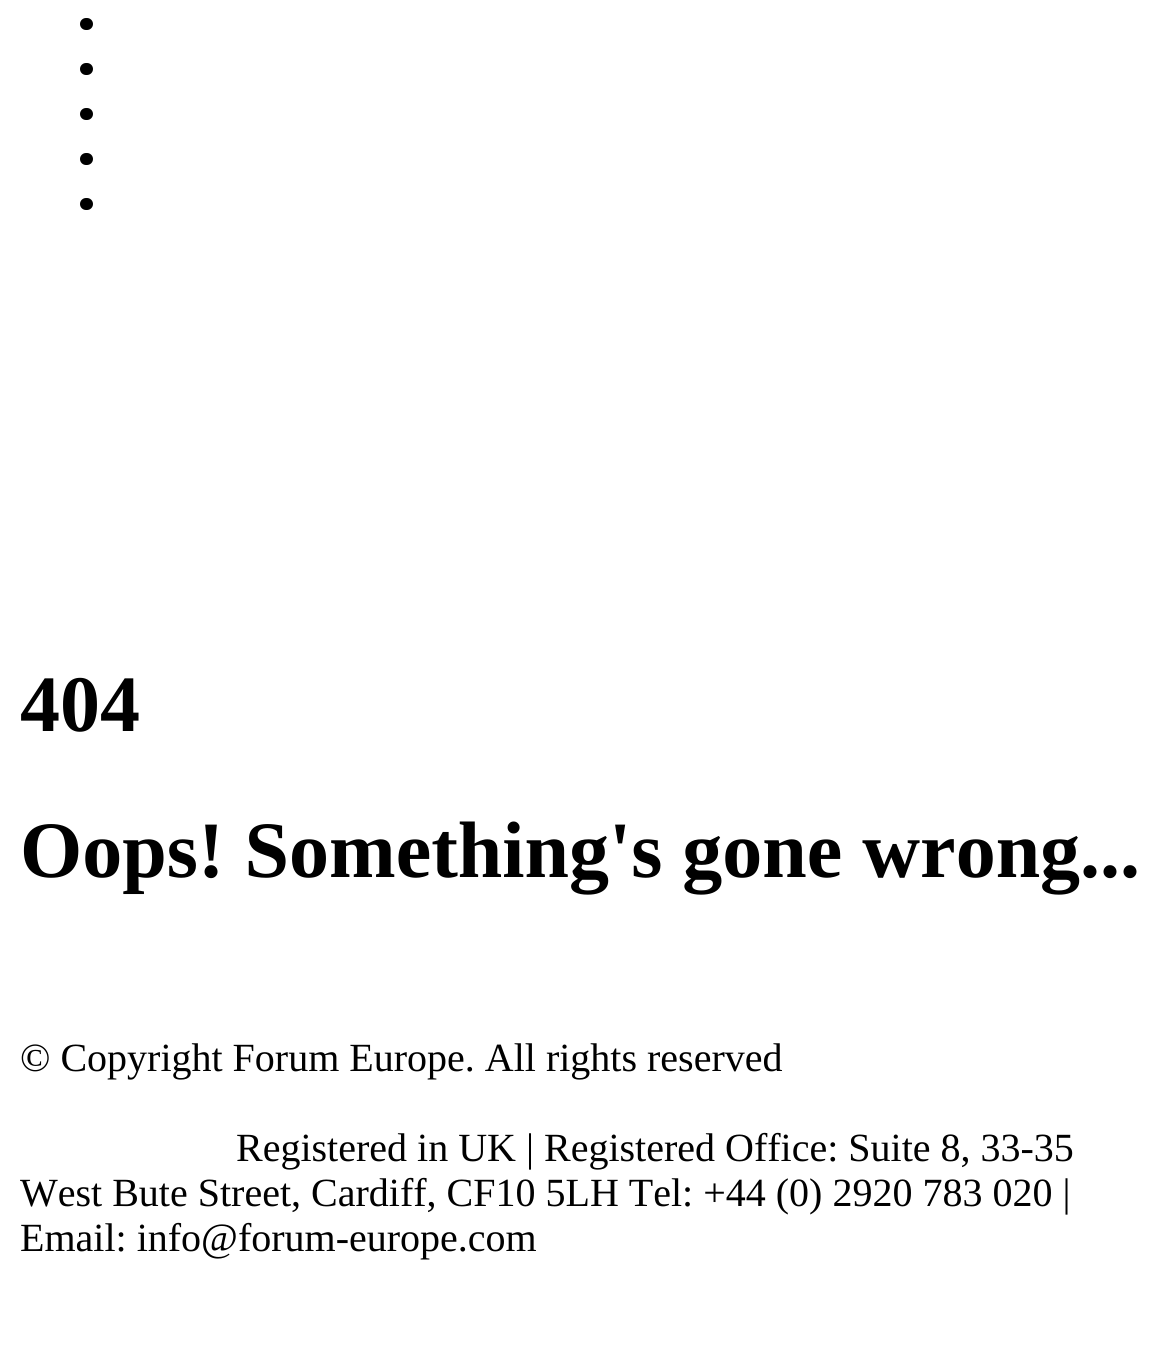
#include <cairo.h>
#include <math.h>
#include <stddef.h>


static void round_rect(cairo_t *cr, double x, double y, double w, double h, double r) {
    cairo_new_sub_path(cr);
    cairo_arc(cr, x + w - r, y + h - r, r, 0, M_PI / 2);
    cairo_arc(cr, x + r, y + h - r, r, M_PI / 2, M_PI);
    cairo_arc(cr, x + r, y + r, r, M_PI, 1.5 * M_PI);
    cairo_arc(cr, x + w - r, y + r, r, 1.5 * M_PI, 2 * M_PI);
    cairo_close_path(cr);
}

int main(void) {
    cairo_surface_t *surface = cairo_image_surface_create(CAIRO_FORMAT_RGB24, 1175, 1365);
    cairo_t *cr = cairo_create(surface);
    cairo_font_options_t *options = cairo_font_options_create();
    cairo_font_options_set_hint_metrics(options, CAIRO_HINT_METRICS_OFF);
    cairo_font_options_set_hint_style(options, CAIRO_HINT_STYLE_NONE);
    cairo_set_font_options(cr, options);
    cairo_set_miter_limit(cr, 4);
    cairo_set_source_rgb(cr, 1, 1, 1);
    cairo_paint(cr);
    cairo_set_source_rgb(cr, 0, 0, 0);
    round_rect(cr, 80, 18, 13, 12, 6);
    cairo_fill(cr);
    round_rect(cr, 80, 63, 13, 12, 6);
    cairo_fill(cr);
    round_rect(cr, 80, 108, 13, 12, 6);
    cairo_fill(cr);
    round_rect(cr, 80, 153, 13, 12, 6);
    cairo_fill(cr);
    round_rect(cr, 80, 198, 13, 12, 6);
    cairo_fill(cr);
    cairo_select_font_face(cr, "Liberation Serif", CAIRO_FONT_SLANT_NORMAL, CAIRO_FONT_WEIGHT_BOLD);
    cairo_set_font_size(cr, 80);
    cairo_move_to(cr, 20, 731);
    cairo_show_text(cr, "404");
    cairo_move_to(cr, 20, 877);
    cairo_show_text(cr, "Oops! Something's gone wrong...");
    cairo_select_font_face(cr, "Liberation Serif", CAIRO_FONT_SLANT_NORMAL, CAIRO_FONT_WEIGHT_NORMAL);
    cairo_set_font_size(cr, 40);
    cairo_move_to(cr, 20, 1071);
    cairo_show_text(cr, "© Copyright Forum Europe. All rights reserved");
    cairo_move_to(cr, 236, 1161);
    cairo_show_text(cr, "Registered in UK | Registered Office: Suite 8, 33-35");
    cairo_move_to(cr, 20, 1206);
    cairo_show_text(cr, "West Bute Street, Cardiff, CF10 5LH Tel: +44 (0) 2920 783 020 |");
    cairo_move_to(cr, 20, 1251);
    cairo_show_text(cr, "Email: info@forum-europe.com");
    cairo_surface_write_to_png(surface, "page.png");
    cairo_font_options_destroy(options);
    cairo_destroy(cr);
    cairo_surface_destroy(surface);
    return 0;
}
